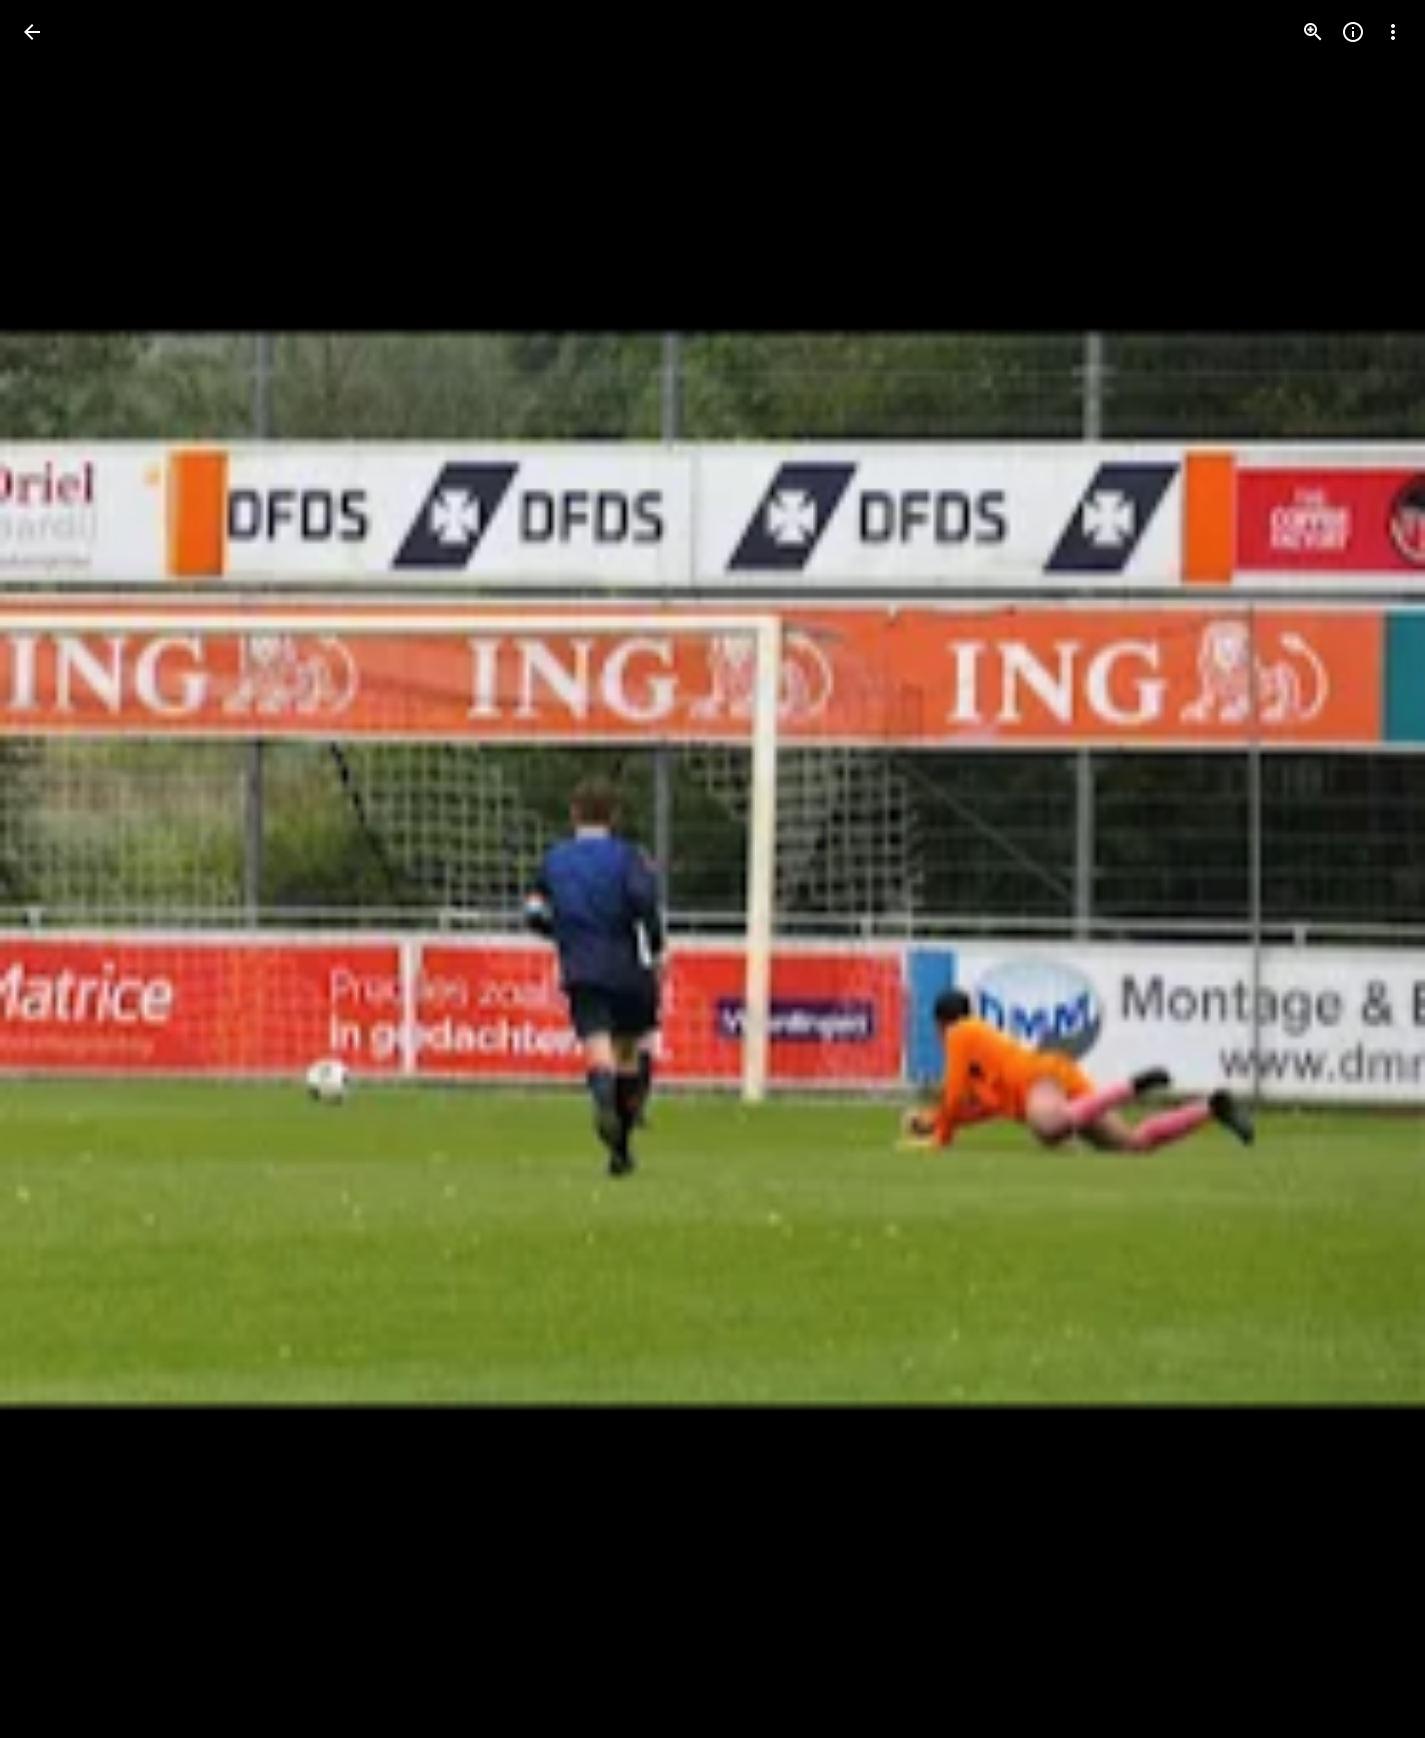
#include <cairo.h>
#include <math.h>
#include <stddef.h>


static void picture(cairo_t *cr, const char *path, double x, double y, double w, double h) {
    cairo_surface_t *image = cairo_image_surface_create_from_png(path);
    cairo_save(cr);
    cairo_set_source_surface(cr, image, x, y);
    cairo_rectangle(cr, x, y, w, h);
    cairo_fill(cr);
    cairo_restore(cr);
    cairo_surface_destroy(image);
}

int main(void) {
    cairo_surface_t *surface = cairo_image_surface_create(CAIRO_FORMAT_RGB24, 1425, 1738);
    cairo_t *cr = cairo_create(surface);
    cairo_font_options_t *options = cairo_font_options_create();
    cairo_font_options_set_hint_metrics(options, CAIRO_HINT_METRICS_OFF);
    cairo_font_options_set_hint_style(options, CAIRO_HINT_STYLE_NONE);
    cairo_set_font_options(cr, options);
    cairo_set_miter_limit(cr, 4);
    cairo_set_source_rgb(cr, 0, 0, 0);
    cairo_paint(cr);
    picture(cr, "img1.png", 24, 24, 16, 16);
    picture(cr, "img2.png", 1304, 23, 18, 18);
    picture(cr, "img3.png", 1343, 22, 20, 20);
    picture(cr, "img4.png", 1391, 24, 4, 16);
    picture(cr, "img5.png", 0, 328, 1425, 1083);
    cairo_surface_write_to_png(surface, "page.png");
    cairo_font_options_destroy(options);
    cairo_destroy(cr);
    cairo_surface_destroy(surface);
    return 0;
}
